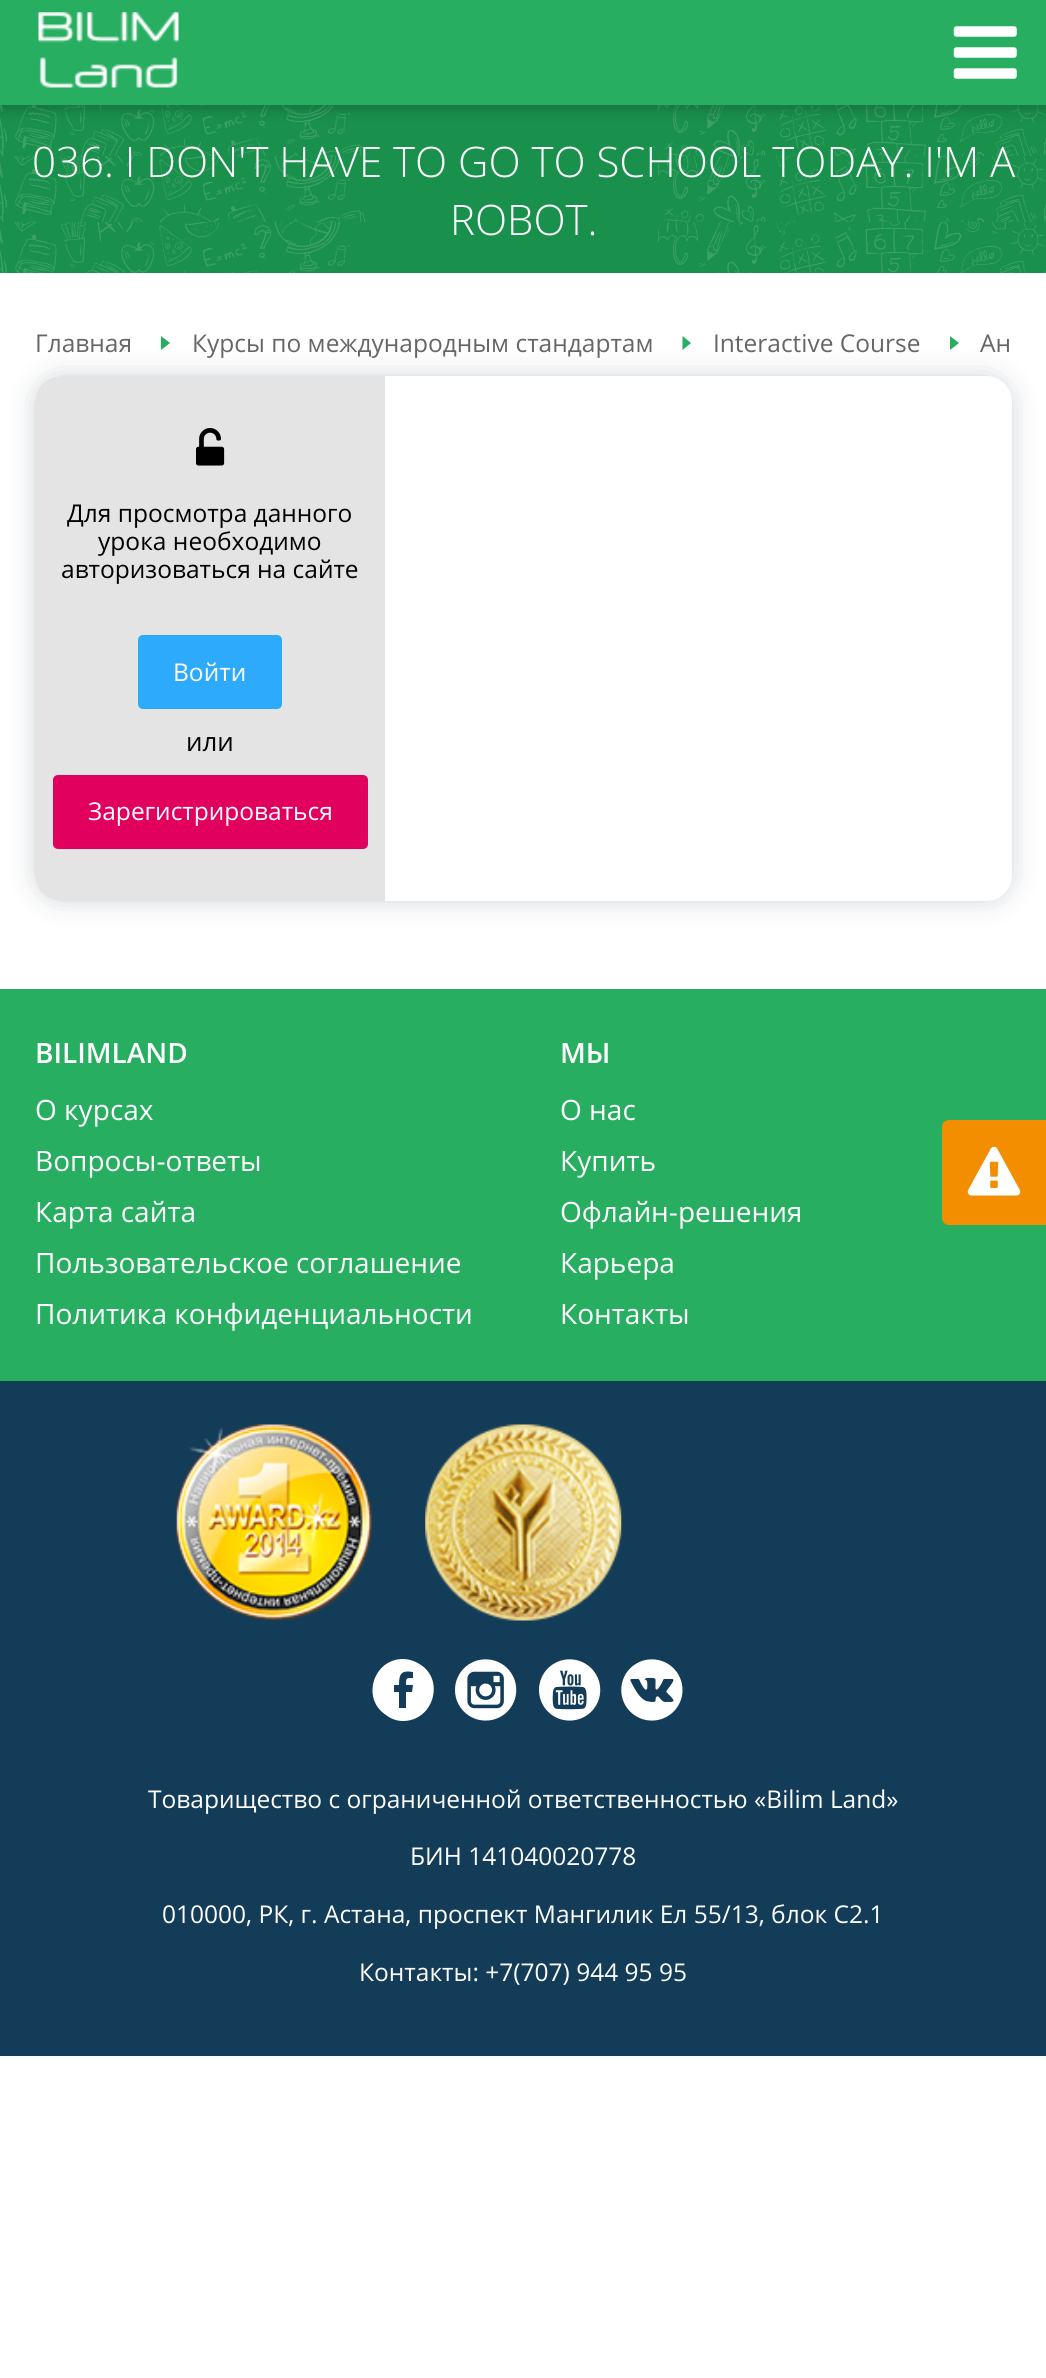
#include <cairo.h>
#include <math.h>
#include <stddef.h>


static void round_rect(cairo_t *cr, double x, double y, double w, double h, double r) {
    cairo_new_sub_path(cr);
    cairo_arc(cr, x + w - r, y + h - r, r, 0, M_PI / 2);
    cairo_arc(cr, x + r, y + h - r, r, M_PI / 2, M_PI);
    cairo_arc(cr, x + r, y + r, r, M_PI, 1.5 * M_PI);
    cairo_arc(cr, x + w - r, y + r, r, 1.5 * M_PI, 2 * M_PI);
    cairo_close_path(cr);
}

static void shadow(cairo_t *cr, double x, double y, double w, double h, double r, double blur, double alpha) {
    cairo_push_group_with_content(cr, CAIRO_CONTENT_ALPHA);
    cairo_set_operator(cr, CAIRO_OPERATOR_SOURCE);
    for (int i = 15; i >= -15 && fmin(w, h) + blur * i / 3 > 0; i -= 2) {
        double e = blur * i / 6;
        cairo_set_source_rgba(cr, 0, 0, 0, alpha * erfc((i - 1) / 8.5) / 2);
        round_rect(cr, x - e, y - e, w + 2 * e, h + 2 * e, fmax(0, fmin(r + e + blur * .6, fmin(w, h) / 2 + e)));
        cairo_fill(cr);
    }
    cairo_pattern_t *soft = cairo_pop_group(cr);
    cairo_mask(cr, soft);
    cairo_pattern_destroy(soft);
}

static void picture(cairo_t *cr, const char *path, double x, double y, double w, double h) {
    cairo_surface_t *image = cairo_image_surface_create_from_png(path);
    cairo_save(cr);
    cairo_set_source_surface(cr, image, x, y);
    cairo_rectangle(cr, x, y, w, h);
    cairo_fill(cr);
    cairo_restore(cr);
    cairo_surface_destroy(image);
}

int main(void) {
    cairo_surface_t *surface = cairo_image_surface_create(CAIRO_FORMAT_RGB24, 1046, 2378);
    cairo_t *cr = cairo_create(surface);
    cairo_font_options_t *options = cairo_font_options_create();
    cairo_font_options_set_hint_metrics(options, CAIRO_HINT_METRICS_OFF);
    cairo_font_options_set_hint_style(options, CAIRO_HINT_STYLE_NONE);
    cairo_set_font_options(cr, options);
    cairo_set_miter_limit(cr, 4);
    cairo_set_source_rgb(cr, 1, 1, 1);
    cairo_paint(cr);
    picture(cr, "img3.png", 0, 105, 1046, 168);
    cairo_set_source_rgb(cr, 0, 0, 0);
    shadow(cr, 0, 5, 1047, 105, 0, 6, 0.2);
    cairo_set_source_rgb(cr, 0.153, 0.682, 0.376);
    cairo_rectangle(cr, 0, 0, 1046, 105);
    cairo_fill(cr);
    picture(cr, "img1.png", 38, 12, 141, 76);
    picture(cr, "img2.png", 953, 26, 64, 53);
    cairo_select_font_face(cr, "Open Sans Light", CAIRO_FONT_SLANT_NORMAL, CAIRO_FONT_WEIGHT_NORMAL);
    cairo_set_font_size(cr, 42);
    cairo_set_source_rgb(cr, 1, 1, 1);
    cairo_move_to(cr, 32, 177);
    cairo_show_text(cr, "036. I DON'T HAVE TO GO TO SCHOOL TODAY. I'M A");
    cairo_move_to(cr, 450, 235);
    cairo_show_text(cr, "ROBOT.");
    cairo_set_source_rgb(cr, 0, 0.122, 0.2);
    shadow(cr, 35, 376, 977, 525, 26, 13, 0.19);
    cairo_select_font_face(cr, "Open Sans", CAIRO_FONT_SLANT_NORMAL, CAIRO_FONT_WEIGHT_NORMAL);
    cairo_set_font_size(cr, 24.5);
    cairo_set_source_rgb(cr, 0.4, 0.4, 0.4);
    cairo_move_to(cr, 35, 352);
    cairo_show_text(cr, "Главная");
    cairo_set_source_rgb(cr, 0.153, 0.682, 0.376);
    cairo_new_path(cr);
    cairo_move_to(cr, 161, 350);
    cairo_line_to(cr, 161, 336);
    cairo_line_to(cr, 170, 343);
    cairo_close_path(cr);
    cairo_fill(cr);
    cairo_set_source_rgb(cr, 0.4, 0.4, 0.4);
    cairo_move_to(cr, 192, 352);
    cairo_show_text(cr, "Курсы по международным стандартам");
    cairo_set_source_rgb(cr, 0.153, 0.682, 0.376);
    cairo_new_path(cr);
    cairo_move_to(cr, 682.5, 350);
    cairo_line_to(cr, 682.5, 336);
    cairo_line_to(cr, 691, 343);
    cairo_close_path(cr);
    cairo_fill(cr);
    cairo_set_source_rgb(cr, 0.4, 0.4, 0.4);
    cairo_move_to(cr, 713, 352);
    cairo_show_text(cr, "Interactive Course");
    cairo_set_source_rgb(cr, 0.153, 0.682, 0.376);
    cairo_new_path(cr);
    cairo_move_to(cr, 950, 350);
    cairo_line_to(cr, 950, 336);
    cairo_line_to(cr, 959, 343);
    cairo_close_path(cr);
    cairo_fill(cr);
    cairo_set_source_rgb(cr, 0.4, 0.4, 0.4);
    cairo_move_to(cr, 980, 352);
    cairo_show_text(cr, "Ан");
    cairo_set_source_rgb(cr, 1, 1, 1);
    round_rect(cr, 35, 376, 977, 525, 26);
    cairo_fill(cr);
    cairo_set_source_rgb(cr, 0.894, 0.894, 0.894);
    cairo_new_path(cr);
    cairo_move_to(cr, 61, 376);
    cairo_line_to(cr, 385, 376);
    cairo_line_to(cr, 385, 901);
    cairo_line_to(cr, 61, 901);
    cairo_curve_to(cr, 46.5, 901, 35, 889.5, 35, 875);
    cairo_line_to(cr, 35, 402);
    cairo_curve_to(cr, 35, 387.5, 46.5, 376, 61, 376);
    cairo_close_path(cr);
    cairo_fill(cr);
    picture(cr, "img4.png", 196, 428, 29, 38);
    cairo_set_source_rgb(cr, 0, 0, 0);
    cairo_move_to(cr, 67, 522);
    cairo_show_text(cr, "Для просмотра данного");
    cairo_move_to(cr, 98, 550);
    cairo_show_text(cr, "урока необходимо");
    cairo_move_to(cr, 61, 578);
    cairo_show_text(cr, "авторизоваться на сайте");
    cairo_set_source_rgb(cr, 0.176, 0.667, 0.988);
    round_rect(cr, 138, 635, 144, 74, 5);
    cairo_fill(cr);
    cairo_set_source_rgb(cr, 1, 1, 1);
    cairo_move_to(cr, 173, 681);
    cairo_show_text(cr, "Войти");
    cairo_set_font_size(cr, 26);
    cairo_set_source_rgb(cr, 0, 0, 0);
    cairo_move_to(cr, 186, 751);
    cairo_show_text(cr, "или");
    cairo_set_source_rgb(cr, 0.886, 0, 0.369);
    round_rect(cr, 53, 775, 315, 74, 5);
    cairo_fill(cr);
    cairo_set_font_size(cr, 24.5);
    cairo_set_source_rgb(cr, 1, 1, 1);
    cairo_move_to(cr, 88, 820);
    cairo_show_text(cr, "Зарегистрироваться");
    cairo_set_source_rgb(cr, 0.153, 0.682, 0.376);
    cairo_rectangle(cr, 0, 989, 1046, 392);
    cairo_fill(cr);
    cairo_set_source_rgb(cr, 0.949, 0.557, 0);
    cairo_new_path(cr);
    cairo_move_to(cr, 949, 1120);
    cairo_line_to(cr, 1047, 1120);
    cairo_line_to(cr, 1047, 1225);
    cairo_line_to(cr, 949, 1225);
    cairo_curve_to(cr, 945, 1225, 942, 1222, 942, 1218);
    cairo_line_to(cr, 942, 1127);
    cairo_curve_to(cr, 942, 1123, 945, 1120, 949, 1120);
    cairo_close_path(cr);
    cairo_fill(cr);
    picture(cr, "img5.png", 967, 1146, 54, 50);
    cairo_select_font_face(cr, "Open Sans SemiBold", CAIRO_FONT_SLANT_NORMAL, CAIRO_FONT_WEIGHT_NORMAL);
    cairo_set_font_size(cr, 28);
    cairo_set_source_rgb(cr, 1, 1, 1);
    cairo_move_to(cr, 35, 1063);
    cairo_show_text(cr, "BILIMLAND");
    cairo_select_font_face(cr, "Open Sans", CAIRO_FONT_SLANT_NORMAL, CAIRO_FONT_WEIGHT_NORMAL);
    cairo_move_to(cr, 35, 1120);
    cairo_show_text(cr, "О курсах");
    cairo_move_to(cr, 35, 1171);
    cairo_show_text(cr, "Вопросы-ответы");
    cairo_move_to(cr, 35, 1222);
    cairo_show_text(cr, "Карта сайта");
    cairo_move_to(cr, 35, 1273);
    cairo_show_text(cr, "Пользовательское соглашение");
    cairo_move_to(cr, 35, 1324);
    cairo_show_text(cr, "Политика конфиденциальности");
    cairo_select_font_face(cr, "Open Sans SemiBold", CAIRO_FONT_SLANT_NORMAL, CAIRO_FONT_WEIGHT_NORMAL);
    cairo_move_to(cr, 560, 1063);
    cairo_show_text(cr, "МЫ");
    cairo_select_font_face(cr, "Open Sans", CAIRO_FONT_SLANT_NORMAL, CAIRO_FONT_WEIGHT_NORMAL);
    cairo_move_to(cr, 560, 1120);
    cairo_show_text(cr, "О нас");
    cairo_move_to(cr, 560, 1171);
    cairo_show_text(cr, "Купить");
    cairo_move_to(cr, 560, 1222);
    cairo_show_text(cr, "Офлайн-решения");
    cairo_move_to(cr, 560, 1273);
    cairo_show_text(cr, "Карьера");
    cairo_move_to(cr, 560, 1324);
    cairo_show_text(cr, "Контакты");
    cairo_set_source_rgb(cr, 0.075, 0.235, 0.345);
    cairo_rectangle(cr, 0, 1381, 1046, 675);
    cairo_fill(cr);
    picture(cr, "img6.png", 176, 1424, 197, 197);
    picture(cr, "img7.png", 425, 1424, 197, 197);
    cairo_set_source_rgb(cr, 1, 1, 1);
    cairo_new_path(cr);
    cairo_move_to(cr, 403, 1659);
    cairo_curve_to(cr, 409, 1659, 415, 1661, 421, 1665);
    cairo_curve_to(cr, 445, 1681, 433, 1721, 403, 1721);
    cairo_curve_to(cr, 397, 1721, 391, 1719, 386, 1715);
    cairo_curve_to(cr, 361, 1699, 373, 1659, 403, 1659);
    cairo_close_path(cr);
    cairo_move_to(cr, 406, 1708);
    cairo_line_to(cr, 406, 1692);
    cairo_line_to(cr, 412, 1692);
    cairo_line_to(cr, 413, 1685);
    cairo_line_to(cr, 406, 1685);
    cairo_curve_to(cr, 406, 1678, 406, 1678, 413, 1678);
    cairo_line_to(cr, 413, 1672);
    cairo_curve_to(cr, 401, 1670, 399, 1674, 399, 1685);
    cairo_line_to(cr, 394, 1685);
    cairo_line_to(cr, 394, 1692);
    cairo_line_to(cr, 399, 1692);
    cairo_line_to(cr, 399, 1708);
    cairo_close_path(cr);
    cairo_fill(cr);
    picture(cr, "img8.png", 455, 1659, 62, 62);
    picture(cr, "img9.png", 539, 1659, 62, 62);
    picture(cr, "img10.png", 621, 1659, 62, 62);
    cairo_set_font_size(cr, 24.5);
    cairo_move_to(cr, 148, 1808);
    cairo_show_text(cr, "Товарищество с ограниченной ответственностью «Bilim Land»");
    cairo_move_to(cr, 410, 1865);
    cairo_show_text(cr, "БИН 141040020778");
    cairo_move_to(cr, 162, 1923);
    cairo_show_text(cr, "010000, РК, г. Астана, проспект Мангилик Ел 55/13, блок С2.1");
    cairo_move_to(cr, 359, 1981);
    cairo_show_text(cr, "Контакты: +7(707) 944 95 95");
    cairo_surface_write_to_png(surface, "page.png");
    cairo_font_options_destroy(options);
    cairo_destroy(cr);
    cairo_surface_destroy(surface);
    return 0;
}
